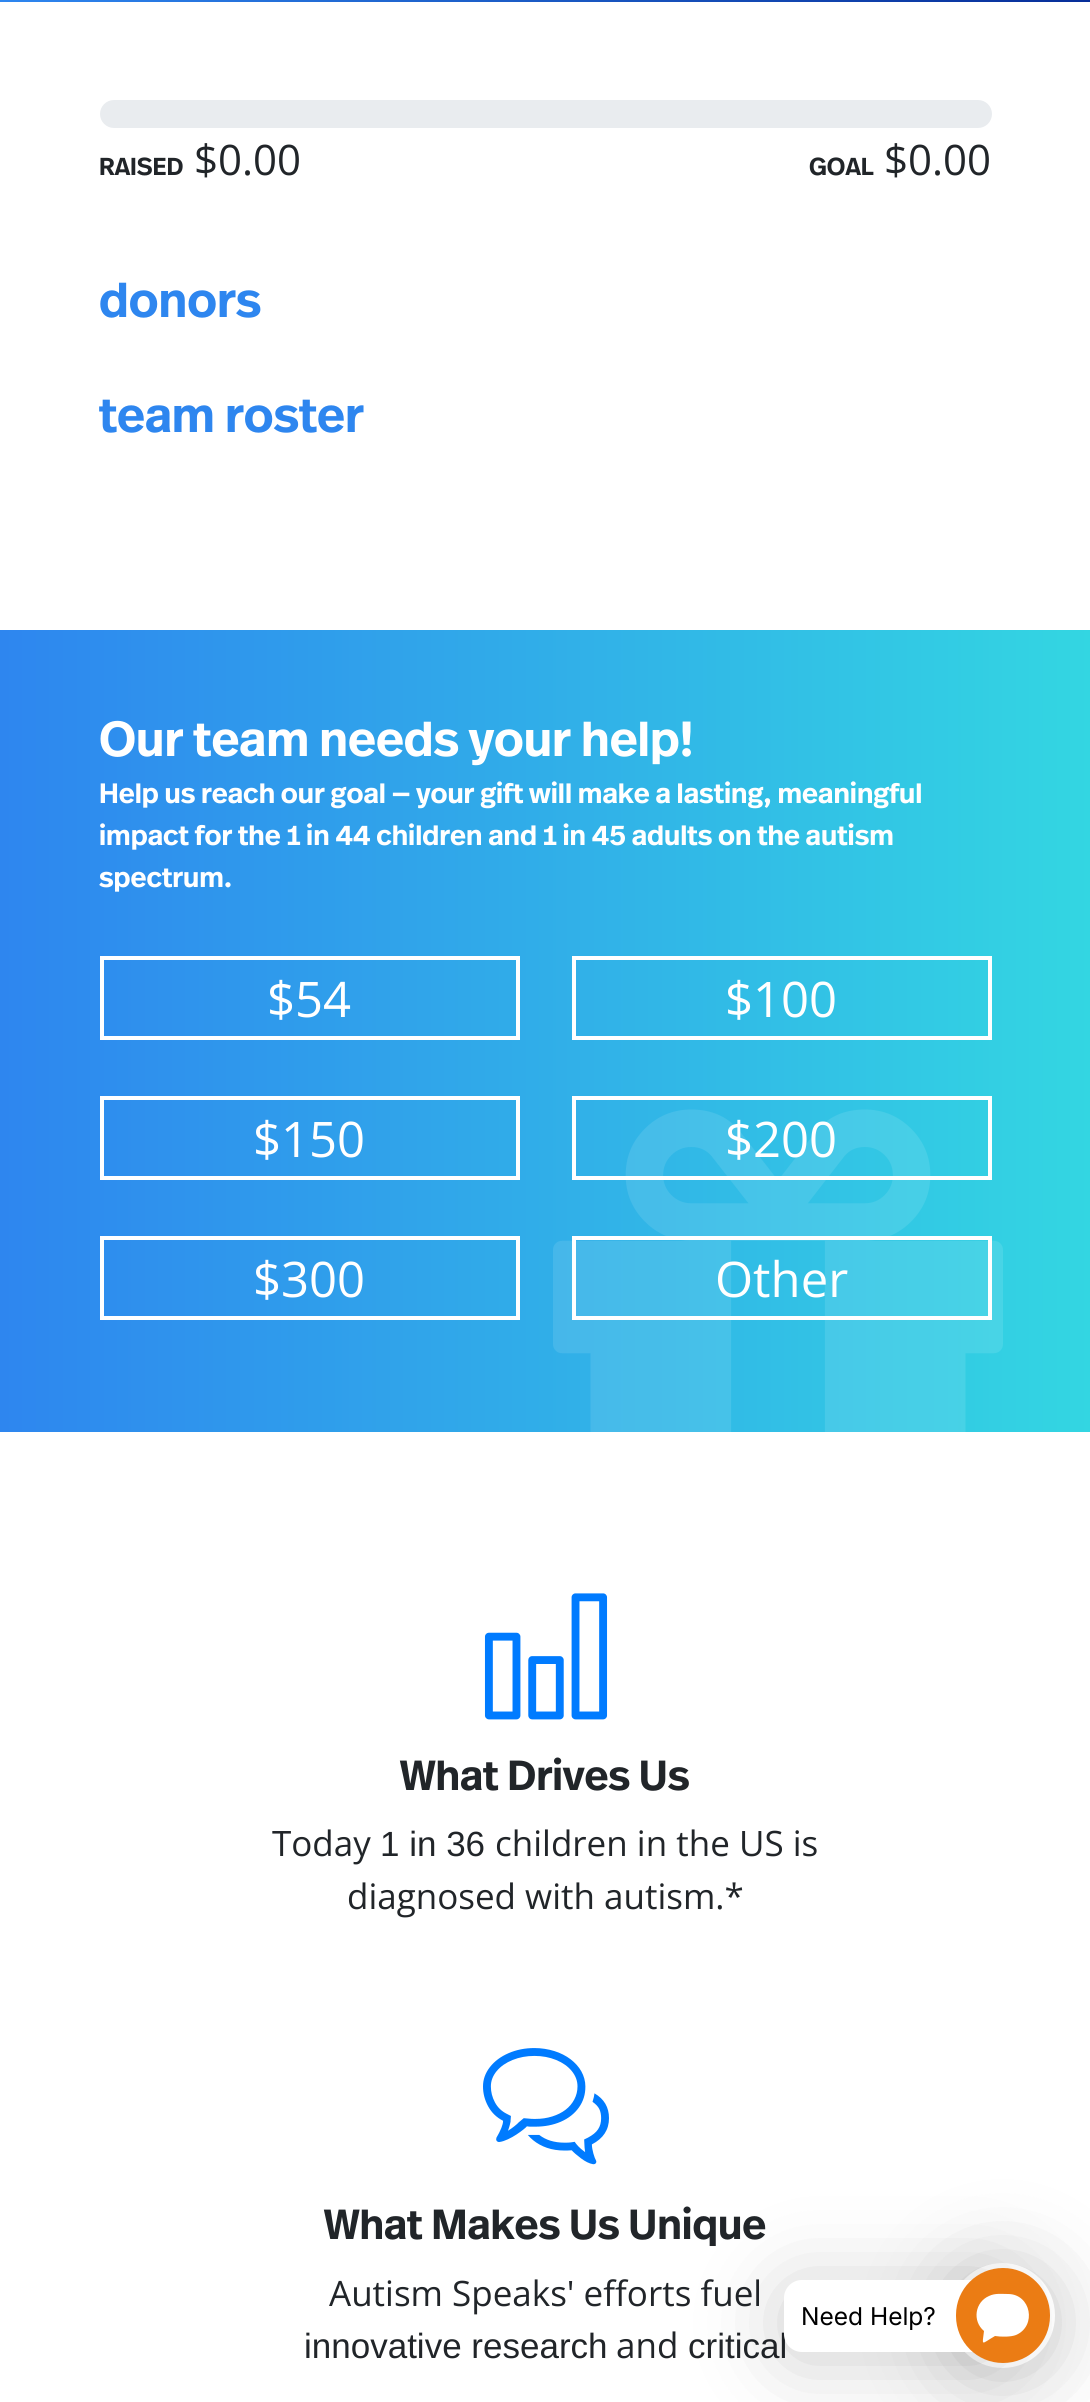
#include <cairo.h>
#include <math.h>
#include <stddef.h>


static void round_rect(cairo_t *cr, double x, double y, double w, double h, double r) {
    cairo_new_sub_path(cr);
    cairo_arc(cr, x + w - r, y + h - r, r, 0, M_PI / 2);
    cairo_arc(cr, x + r, y + h - r, r, M_PI / 2, M_PI);
    cairo_arc(cr, x + r, y + r, r, M_PI, 1.5 * M_PI);
    cairo_arc(cr, x + w - r, y + r, r, 1.5 * M_PI, 2 * M_PI);
    cairo_close_path(cr);
}

static void shadow(cairo_t *cr, double x, double y, double w, double h, double r, double blur, double alpha) {
    cairo_push_group_with_content(cr, CAIRO_CONTENT_ALPHA);
    cairo_set_operator(cr, CAIRO_OPERATOR_SOURCE);
    for (int i = 15; i >= -15 && fmin(w, h) + blur * i / 3 > 0; i -= 2) {
        double e = blur * i / 6;
        cairo_set_source_rgba(cr, 0, 0, 0, alpha * erfc((i - 1) / 8.5) / 2);
        round_rect(cr, x - e, y - e, w + 2 * e, h + 2 * e, fmax(0, fmin(r + e + blur * .6, fmin(w, h) / 2 + e)));
        cairo_fill(cr);
    }
    cairo_pattern_t *soft = cairo_pop_group(cr);
    cairo_mask(cr, soft);
    cairo_pattern_destroy(soft);
}

static void picture(cairo_t *cr, const char *path, double x, double y, double w, double h) {
    cairo_surface_t *image = cairo_image_surface_create_from_png(path);
    cairo_save(cr);
    cairo_set_source_surface(cr, image, x, y);
    cairo_rectangle(cr, x, y, w, h);
    cairo_fill(cr);
    cairo_restore(cr);
    cairo_surface_destroy(image);
}

int main(void) {
    cairo_surface_t *surface = cairo_image_surface_create(CAIRO_FORMAT_RGB24, 1090, 2402);
    cairo_t *cr = cairo_create(surface);
    cairo_font_options_t *options = cairo_font_options_create();
    cairo_font_options_set_hint_metrics(options, CAIRO_HINT_METRICS_OFF);
    cairo_font_options_set_hint_style(options, CAIRO_HINT_STYLE_NONE);
    cairo_set_font_options(cr, options);
    cairo_set_miter_limit(cr, 4);
    cairo_pattern_t *gradient;
    cairo_set_source_rgb(cr, 1, 1, 1);
    cairo_paint(cr);
    gradient = cairo_pattern_create_linear(0, -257, 1090, -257);
    cairo_pattern_add_color_stop_rgba(gradient, 0, 0.18, 0.525, 0.937, 1);
    cairo_pattern_add_color_stop_rgba(gradient, 1, 0.027, 0.18, 0.6, 1);
    cairo_set_source(cr, gradient);
    cairo_pattern_destroy(gradient);
    cairo_rectangle(cr, 0, 0, 1090, 2);
    cairo_fill(cr);
    cairo_set_source_rgb(cr, 0.914, 0.925, 0.937);
    round_rect(cr, 100, 100, 892, 28, 14);
    cairo_fill(cr);
    cairo_select_font_face(cr, "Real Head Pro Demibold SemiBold", CAIRO_FONT_SLANT_NORMAL, CAIRO_FONT_WEIGHT_NORMAL);
    cairo_set_font_size(cr, 24.5);
    cairo_set_source_rgb(cr, 0.129, 0.145, 0.161);
    cairo_move_to(cr, 99, 175);
    cairo_show_text(cr, "RAISED");
    cairo_select_font_face(cr, "Open Sans", CAIRO_FONT_SLANT_NORMAL, CAIRO_FONT_WEIGHT_NORMAL);
    cairo_set_font_size(cr, 42);
    cairo_move_to(cr, 194, 175);
    cairo_show_text(cr, "$0.00");
    cairo_select_font_face(cr, "Real Head Pro Demibold SemiBold", CAIRO_FONT_SLANT_NORMAL, CAIRO_FONT_WEIGHT_NORMAL);
    cairo_set_font_size(cr, 24.5);
    cairo_move_to(cr, 809, 175);
    cairo_show_text(cr, "GOAL");
    cairo_select_font_face(cr, "Open Sans", CAIRO_FONT_SLANT_NORMAL, CAIRO_FONT_WEIGHT_NORMAL);
    cairo_set_font_size(cr, 42);
    cairo_move_to(cr, 884, 175);
    cairo_show_text(cr, "$0.00");
    cairo_select_font_face(cr, "Real Head Pro Demibold SemiBold", CAIRO_FONT_SLANT_NORMAL, CAIRO_FONT_WEIGHT_NORMAL);
    cairo_set_font_size(cr, 49);
    cairo_set_source_rgb(cr, 0.18, 0.525, 0.937);
    cairo_move_to(cr, 99, 317);
    cairo_show_text(cr, "donors");
    cairo_move_to(cr, 99, 432);
    cairo_show_text(cr, "team roster");
    gradient = cairo_pattern_create_linear(0, 1031, 1090, 1031);
    cairo_pattern_add_color_stop_rgba(gradient, 0, 0.18, 0.525, 0.937, 1);
    cairo_pattern_add_color_stop_rgba(gradient, 1, 0.2, 0.839, 0.886, 1);
    cairo_set_source(cr, gradient);
    cairo_pattern_destroy(gradient);
    cairo_rectangle(cr, 0, 630, 1090, 802);
    cairo_fill(cr);
    cairo_set_source_rgb(cr, 1, 1, 1);
    cairo_move_to(cr, 99, 756);
    cairo_show_text(cr, "Our team needs your help!");
    cairo_set_font_size(cr, 28);
    cairo_move_to(cr, 99, 803);
    cairo_show_text(cr, "Help us reach our goal — your gift will make a lasting, meaningful");
    cairo_move_to(cr, 99, 845);
    cairo_show_text(cr, "impact for the 1 in 44 children and 1 in 45 adults on the autism");
    cairo_move_to(cr, 99, 887);
    cairo_show_text(cr, "spectrum.");
    cairo_rectangle(cr, 102, 958, 416, 80);
    cairo_set_line_width(cr, 4);
    cairo_stroke(cr);
    cairo_select_font_face(cr, "Open Sans", CAIRO_FONT_SLANT_NORMAL, CAIRO_FONT_WEIGHT_NORMAL);
    cairo_set_font_size(cr, 49);
    cairo_move_to(cr, 267, 1017);
    cairo_show_text(cr, "$54");
    cairo_rectangle(cr, 574, 958, 416, 80);
    cairo_stroke(cr);
    cairo_move_to(cr, 725, 1017);
    cairo_show_text(cr, "$100");
    cairo_rectangle(cr, 102, 1098, 416, 80);
    cairo_stroke(cr);
    cairo_move_to(cr, 253, 1157);
    cairo_show_text(cr, "$150");
    picture(cr, "img1.png", 553, 1109, 450, 323);
    cairo_rectangle(cr, 574, 1098, 416, 80);
    cairo_stroke(cr);
    cairo_move_to(cr, 725, 1157);
    cairo_show_text(cr, "$200");
    cairo_rectangle(cr, 102, 1238, 416, 80);
    cairo_stroke(cr);
    cairo_move_to(cr, 253, 1297);
    cairo_show_text(cr, "$300");
    cairo_rectangle(cr, 574, 1238, 416, 80);
    cairo_stroke(cr);
    cairo_move_to(cr, 715, 1297);
    cairo_show_text(cr, "Other");
    picture(cr, "img2.png", 484, 1593, 124, 127);
    cairo_select_font_face(cr, "Real Head Pro Demibold SemiBold", CAIRO_FONT_SLANT_NORMAL, CAIRO_FONT_WEIGHT_NORMAL);
    cairo_set_font_size(cr, 42);
    cairo_set_source_rgb(cr, 0.129, 0.145, 0.161);
    cairo_move_to(cr, 400, 1790);
    cairo_show_text(cr, "What Drives Us");
    cairo_select_font_face(cr, "Open Sans", CAIRO_FONT_SLANT_NORMAL, CAIRO_FONT_WEIGHT_NORMAL);
    cairo_set_font_size(cr, 35);
    cairo_move_to(cr, 272, 1856);
    cairo_show_text(cr, "Today");
    cairo_select_font_face(cr, "Liberation Sans", CAIRO_FONT_SLANT_NORMAL, CAIRO_FONT_WEIGHT_NORMAL);
    cairo_move_to(cr, 380, 1856);
    cairo_show_text(cr, "1 in 36");
    cairo_select_font_face(cr, "Open Sans", CAIRO_FONT_SLANT_NORMAL, CAIRO_FONT_WEIGHT_NORMAL);
    cairo_move_to(cr, 495, 1856);
    cairo_show_text(cr, "children in the US is");
    cairo_move_to(cr, 347, 1909);
    cairo_show_text(cr, "diagnosed with autism.*");
    picture(cr, "img3.png", 483, 2048, 126, 117);
    cairo_select_font_face(cr, "Real Head Pro Demibold SemiBold", CAIRO_FONT_SLANT_NORMAL, CAIRO_FONT_WEIGHT_NORMAL);
    cairo_set_font_size(cr, 42);
    cairo_move_to(cr, 324, 2239);
    cairo_show_text(cr, "What Makes Us Unique");
    cairo_select_font_face(cr, "Open Sans", CAIRO_FONT_SLANT_NORMAL, CAIRO_FONT_WEIGHT_NORMAL);
    cairo_set_font_size(cr, 35);
    cairo_move_to(cr, 329, 2306);
    cairo_show_text(cr, "Autism Speaks' efforts fuel");
    cairo_select_font_face(cr, "Liberation Sans", CAIRO_FONT_SLANT_NORMAL, CAIRO_FONT_WEIGHT_NORMAL);
    cairo_move_to(cr, 304, 2358);
    cairo_show_text(cr, "innovative research");
    cairo_select_font_face(cr, "Open Sans", CAIRO_FONT_SLANT_NORMAL, CAIRO_FONT_WEIGHT_NORMAL);
    cairo_move_to(cr, 616, 2358);
    cairo_show_text(cr, "and");
    cairo_select_font_face(cr, "Liberation Sans", CAIRO_FONT_SLANT_NORMAL, CAIRO_FONT_WEIGHT_NORMAL);
    cairo_move_to(cr, 688, 2358);
    cairo_show_text(cr, "critical");
    cairo_set_source_rgb(cr, 0, 0, 0);
    shadow(cr, 950, 2270, 105, 105, 52.5, 42, 0.2);
    cairo_set_source_rgb(cr, 1, 1, 1);
    cairo_arc(cr, 1002.5, 2315.5, 52.5, 0, 2 * M_PI);
    cairo_fill(cr);
    cairo_set_source_rgb(cr, 0, 0, 0);
    shadow(cr, 784, 2287, 219, 72, 18, 42, 0.2);
    cairo_set_source_rgb(cr, 1, 1, 1);
    round_rect(cr, 784, 2280, 219, 72, 18);
    cairo_fill(cr);
    cairo_set_source_rgb(cr, 0.918, 0.486, 0.082);
    round_rect(cr, 956, 2268, 94, 95, 47);
    cairo_fill(cr);
    cairo_set_source_rgb(cr, 1, 1, 1);
    cairo_set_fill_rule(cr, CAIRO_FILL_RULE_EVEN_ODD);
    cairo_new_path(cr);
    cairo_move_to(cr, 1008, 2294);
    cairo_curve_to(cr, 1031, 2294, 1037, 2326, 1016, 2335);
    cairo_curve_to(cr, 1011, 2337, 1001, 2337, 995, 2336);
    cairo_curve_to(cr, 981, 2344, 982, 2347, 984, 2331);
    cairo_curve_to(cr, 972, 2321, 975, 2302, 989, 2296);
    cairo_curve_to(cr, 995, 2293, 1002, 2294, 1008, 2294);
    cairo_close_path(cr);
    cairo_fill(cr);
    cairo_select_font_face(cr, "Inter", CAIRO_FONT_SLANT_NORMAL, CAIRO_FONT_WEIGHT_NORMAL);
    cairo_set_font_size(cr, 24.5);
    cairo_set_source_rgb(cr, 0, 0, 0);
    cairo_move_to(cr, 801, 2325);
    cairo_show_text(cr, "Need Help?");
    cairo_surface_write_to_png(surface, "page.png");
    cairo_font_options_destroy(options);
    cairo_destroy(cr);
    cairo_surface_destroy(surface);
    return 0;
}
